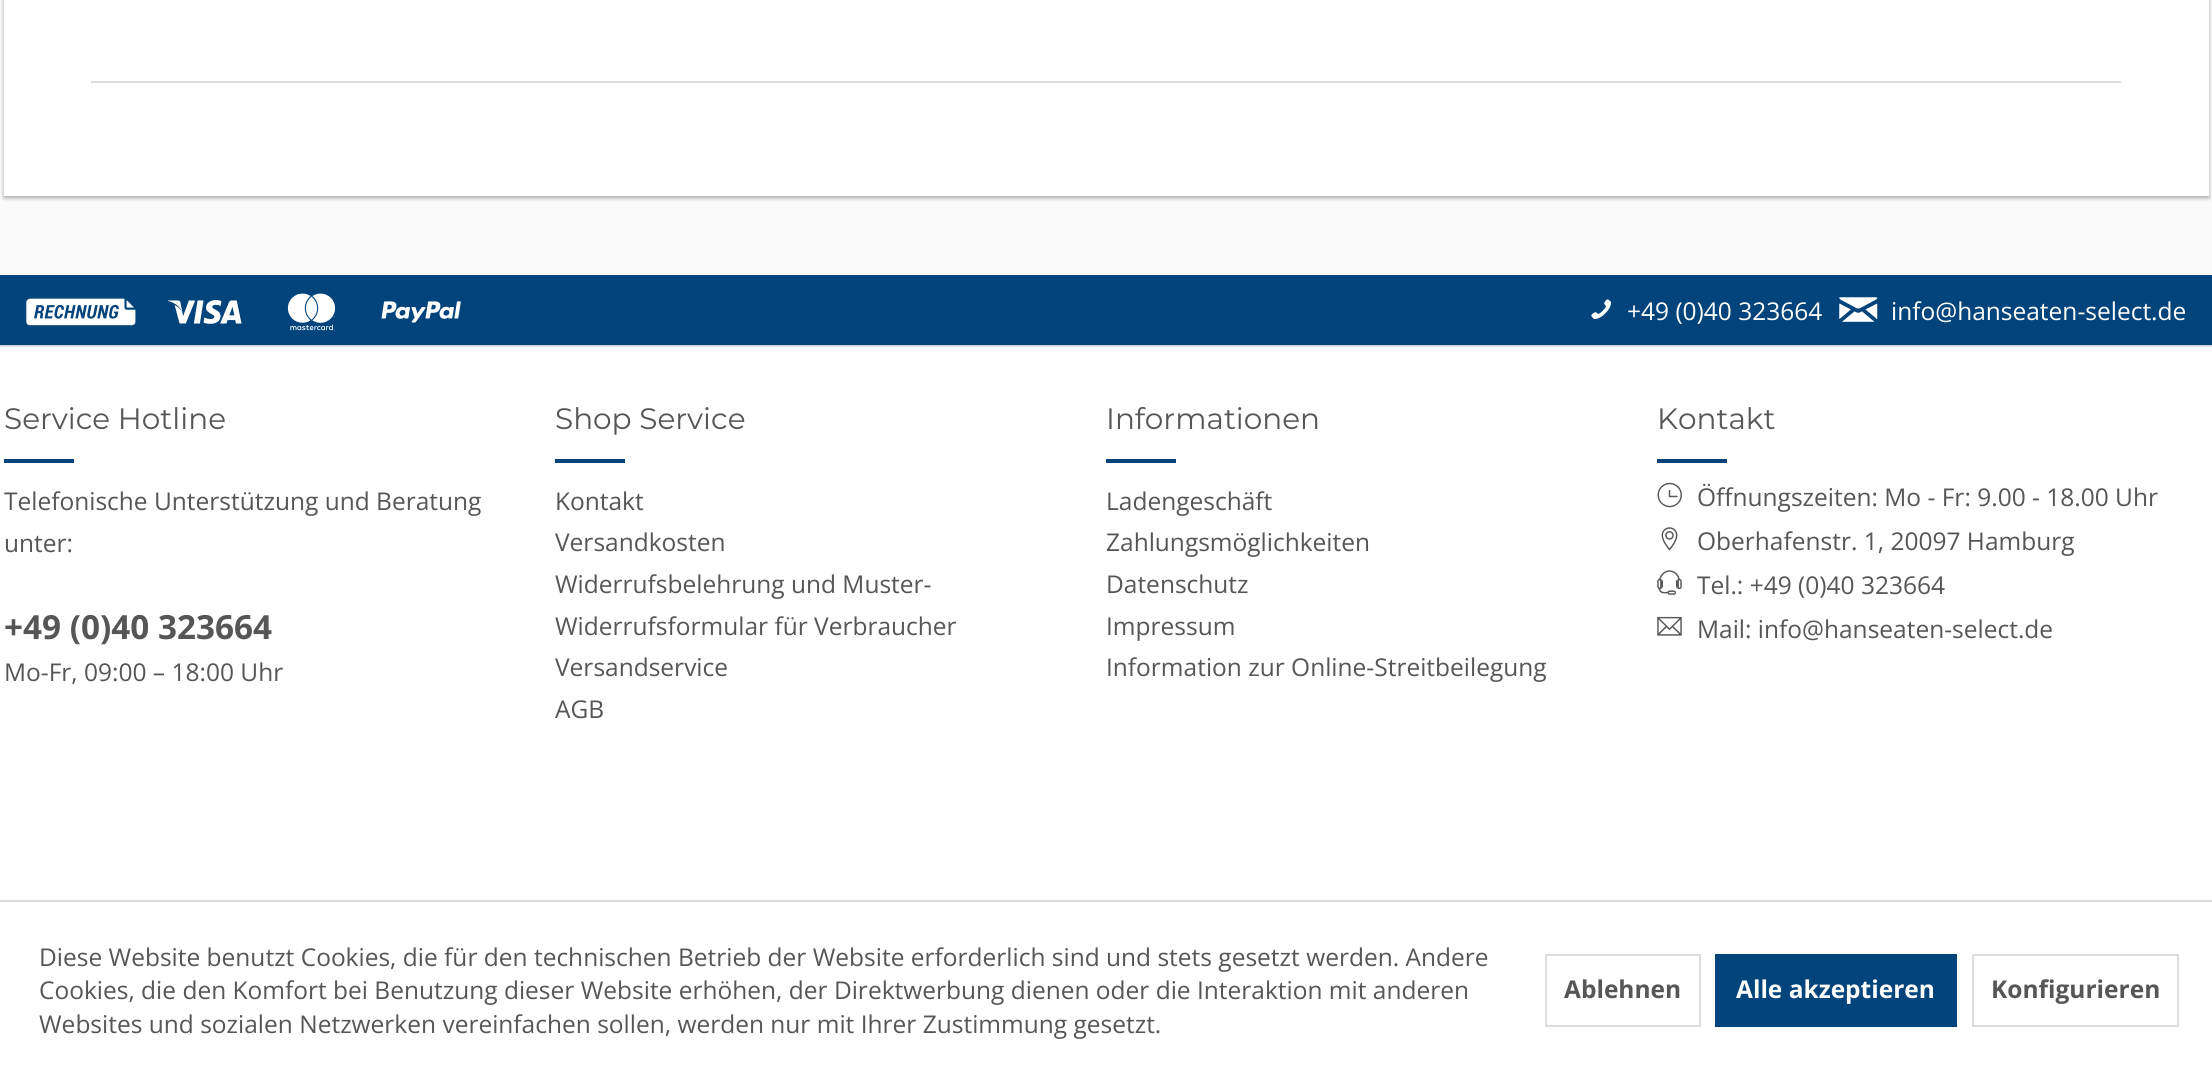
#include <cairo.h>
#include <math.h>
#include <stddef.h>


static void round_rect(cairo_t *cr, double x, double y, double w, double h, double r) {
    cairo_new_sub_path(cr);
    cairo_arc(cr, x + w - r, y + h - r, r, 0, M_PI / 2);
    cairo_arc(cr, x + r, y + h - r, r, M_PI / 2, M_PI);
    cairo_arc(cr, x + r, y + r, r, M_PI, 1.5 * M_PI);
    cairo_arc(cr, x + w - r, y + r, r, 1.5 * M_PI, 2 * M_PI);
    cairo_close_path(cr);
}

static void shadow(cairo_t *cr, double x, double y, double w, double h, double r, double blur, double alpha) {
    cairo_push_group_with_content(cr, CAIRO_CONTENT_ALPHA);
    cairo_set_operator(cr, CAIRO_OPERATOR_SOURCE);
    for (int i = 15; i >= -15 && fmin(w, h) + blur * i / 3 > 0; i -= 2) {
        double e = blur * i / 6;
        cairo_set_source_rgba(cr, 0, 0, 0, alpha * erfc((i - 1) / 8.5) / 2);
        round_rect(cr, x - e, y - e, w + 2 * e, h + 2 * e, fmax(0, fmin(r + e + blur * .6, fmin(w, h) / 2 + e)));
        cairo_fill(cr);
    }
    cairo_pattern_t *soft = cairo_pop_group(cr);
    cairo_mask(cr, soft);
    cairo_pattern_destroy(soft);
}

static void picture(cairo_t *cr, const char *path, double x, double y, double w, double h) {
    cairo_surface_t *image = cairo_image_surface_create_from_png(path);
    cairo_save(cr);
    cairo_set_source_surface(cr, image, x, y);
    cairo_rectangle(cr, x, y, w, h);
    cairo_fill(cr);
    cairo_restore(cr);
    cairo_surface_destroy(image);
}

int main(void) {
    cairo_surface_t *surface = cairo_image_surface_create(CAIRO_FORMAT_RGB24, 2212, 1077);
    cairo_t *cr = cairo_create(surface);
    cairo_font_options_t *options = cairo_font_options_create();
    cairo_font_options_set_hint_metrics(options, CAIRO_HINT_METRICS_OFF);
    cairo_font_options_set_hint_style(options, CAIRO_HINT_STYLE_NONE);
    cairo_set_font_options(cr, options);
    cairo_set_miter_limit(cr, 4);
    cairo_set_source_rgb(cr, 0.98, 0.98, 0.98);
    cairo_paint(cr);
    cairo_set_source_rgb(cr, 0, 0, 0);
    shadow(cr, 4, -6, 2205, 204, 0, 2, 0.24);
    shadow(cr, 4, -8, 2205, 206, 0, 2.5, 0.12);
    cairo_set_source_rgb(cr, 1, 1, 1);
    cairo_rectangle(cr, 4, 0, 2205, 196);
    cairo_fill(cr);
    cairo_set_source_rgb(cr, 0.867, 0.867, 0.867);
    cairo_rectangle(cr, 91, 81, 2030, 2);
    cairo_fill(cr);
    cairo_set_source_rgb(cr, 0.004, 0.263, 0.482);
    cairo_rectangle(cr, 0, 275, 2212, 70);
    cairo_fill(cr);
    picture(cr, "img1.png", 26, 298, 110, 28);
    picture(cr, "img2.png", 168, 300, 74, 24);
    picture(cr, "img3.png", 287, 293, 49, 38);
    picture(cr, "img4.png", 381, 301, 80, 22);
    picture(cr, "img5.png", 1591, 299, 20, 20);
    cairo_select_font_face(cr, "Open Sans", CAIRO_FONT_SLANT_NORMAL, CAIRO_FONT_WEIGHT_NORMAL);
    cairo_set_font_size(cr, 24.5);
    cairo_set_source_rgb(cr, 1, 1, 1);
    cairo_move_to(cr, 1627, 320);
    cairo_show_text(cr, "+49 (0)40 323664");
    picture(cr, "img6.png", 1839, 297, 39, 25);
    cairo_move_to(cr, 1891, 320);
    cairo_show_text(cr, "info@hanseaten-select.de");
    cairo_rectangle(cr, 0, 347, 2212, 553);
    cairo_fill(cr);
    cairo_set_source_rgb(cr, 0.855, 0.855, 0.898);
    cairo_rectangle(cr, 0, 345, 2212, 2);
    cairo_fill(cr);
    cairo_select_font_face(cr, "Montserrat", CAIRO_FONT_SLANT_NORMAL, CAIRO_FONT_WEIGHT_NORMAL);
    cairo_set_font_size(cr, 29.5);
    cairo_set_source_rgb(cr, 0.337, 0.337, 0.337);
    cairo_move_to(cr, 4, 429);
    cairo_show_text(cr, "Service Hotline");
    cairo_set_source_rgb(cr, 0.004, 0.263, 0.482);
    cairo_rectangle(cr, 4, 459, 70, 4);
    cairo_fill(cr);
    cairo_select_font_face(cr, "Open Sans", CAIRO_FONT_SLANT_NORMAL, CAIRO_FONT_WEIGHT_NORMAL);
    cairo_set_font_size(cr, 24.5);
    cairo_set_source_rgb(cr, 0.337, 0.337, 0.337);
    cairo_move_to(cr, 4, 510);
    cairo_show_text(cr, "Telefonische Unterstützung und Beratung");
    cairo_move_to(cr, 4, 552);
    cairo_show_text(cr, "unter:");
    cairo_select_font_face(cr, "Open Sans", CAIRO_FONT_SLANT_NORMAL, CAIRO_FONT_WEIGHT_BOLD);
    cairo_set_font_size(cr, 33.25);
    cairo_move_to(cr, 4, 639);
    cairo_show_text(cr, "+49 (0)40 323664");
    cairo_select_font_face(cr, "Open Sans", CAIRO_FONT_SLANT_NORMAL, CAIRO_FONT_WEIGHT_NORMAL);
    cairo_set_font_size(cr, 24.5);
    cairo_move_to(cr, 4, 681);
    cairo_show_text(cr, "Mo-Fr, 09:00 – 18:00 Uhr");
    cairo_select_font_face(cr, "Montserrat", CAIRO_FONT_SLANT_NORMAL, CAIRO_FONT_WEIGHT_NORMAL);
    cairo_set_font_size(cr, 29.5);
    cairo_move_to(cr, 555, 429);
    cairo_show_text(cr, "Shop Service");
    cairo_set_source_rgb(cr, 0.004, 0.263, 0.482);
    cairo_rectangle(cr, 555, 459, 70, 4);
    cairo_fill(cr);
    cairo_select_font_face(cr, "Open Sans", CAIRO_FONT_SLANT_NORMAL, CAIRO_FONT_WEIGHT_NORMAL);
    cairo_set_font_size(cr, 24.5);
    cairo_set_source_rgb(cr, 0.337, 0.337, 0.337);
    cairo_move_to(cr, 555, 510);
    cairo_show_text(cr, "Kontakt");
    cairo_move_to(cr, 555, 551);
    cairo_show_text(cr, "Versandkosten");
    cairo_move_to(cr, 555, 593);
    cairo_show_text(cr, "Widerrufsbelehrung und Muster-");
    cairo_move_to(cr, 555, 635);
    cairo_show_text(cr, "Widerrufsformular für Verbraucher");
    cairo_move_to(cr, 555, 676);
    cairo_show_text(cr, "Versandservice");
    cairo_move_to(cr, 555, 718);
    cairo_show_text(cr, "AGB");
    cairo_select_font_face(cr, "Montserrat", CAIRO_FONT_SLANT_NORMAL, CAIRO_FONT_WEIGHT_NORMAL);
    cairo_set_font_size(cr, 29.5);
    cairo_move_to(cr, 1106, 429);
    cairo_show_text(cr, "Informationen");
    cairo_set_source_rgb(cr, 0.004, 0.263, 0.482);
    cairo_rectangle(cr, 1106, 459, 70, 4);
    cairo_fill(cr);
    cairo_select_font_face(cr, "Open Sans", CAIRO_FONT_SLANT_NORMAL, CAIRO_FONT_WEIGHT_NORMAL);
    cairo_set_font_size(cr, 24.5);
    cairo_set_source_rgb(cr, 0.337, 0.337, 0.337);
    cairo_move_to(cr, 1106, 510);
    cairo_show_text(cr, "Ladengeschäft");
    cairo_move_to(cr, 1106, 551);
    cairo_show_text(cr, "Zahlungsmöglichkeiten");
    cairo_move_to(cr, 1106, 593);
    cairo_show_text(cr, "Datenschutz");
    cairo_move_to(cr, 1106, 635);
    cairo_show_text(cr, "Impressum");
    cairo_move_to(cr, 1106, 676);
    cairo_show_text(cr, "Information zur Online-Streitbeilegung");
    cairo_select_font_face(cr, "Montserrat", CAIRO_FONT_SLANT_NORMAL, CAIRO_FONT_WEIGHT_NORMAL);
    cairo_set_font_size(cr, 29.5);
    cairo_move_to(cr, 1657, 429);
    cairo_show_text(cr, "Kontakt");
    cairo_set_source_rgb(cr, 0.004, 0.263, 0.482);
    cairo_rectangle(cr, 1657, 459, 70, 4);
    cairo_fill(cr);
    picture(cr, "img7.png", 1657, 482, 25, 26);
    cairo_select_font_face(cr, "Open Sans", CAIRO_FONT_SLANT_NORMAL, CAIRO_FONT_WEIGHT_NORMAL);
    cairo_set_font_size(cr, 24.5);
    cairo_set_source_rgb(cr, 0.337, 0.337, 0.337);
    cairo_move_to(cr, 1697, 506);
    cairo_show_text(cr, "Öffnungszeiten: Mo - Fr: 9.00 - 18.00 Uhr");
    picture(cr, "img8.png", 1661, 527, 17, 24);
    cairo_move_to(cr, 1697, 550);
    cairo_show_text(cr, "Oberhafenstr. 1, 20097 Hamburg");
    picture(cr, "img9.png", 1657, 570, 25, 25);
    cairo_move_to(cr, 1697, 594);
    cairo_show_text(cr, "Tel.: +49 (0)40 323664");
    picture(cr, "img10.png", 1657, 616, 25, 20);
    cairo_move_to(cr, 1697, 638);
    cairo_show_text(cr, "Mail: info@hanseaten-select.de");
    cairo_set_source_rgb(cr, 1, 1, 1);
    cairo_rectangle(cr, 0, 902, 2212, 175);
    cairo_fill(cr);
    cairo_set_source_rgb(cr, 0.855, 0.855, 0.898);
    cairo_rectangle(cr, 0, 900, 2212, 2);
    cairo_fill(cr);
    cairo_set_source_rgb(cr, 0.337, 0.337, 0.337);
    cairo_move_to(cr, 39, 966);
    cairo_show_text(cr, "Diese Website benutzt Cookies, die für den technischen Betrieb der Website erforderlich sind und stets gesetzt werden. Andere");
    cairo_move_to(cr, 39, 999);
    cairo_show_text(cr, "Cookies, die den Komfort bei Benutzung dieser Website erhöhen, der Direktwerbung dienen oder die Interaktion mit anderen");
    cairo_move_to(cr, 39, 1033);
    cairo_show_text(cr, "Websites und sozialen Netzwerken vereinfachen sollen, werden nur mit Ihrer Zustimmung gesetzt.");
    cairo_rectangle(cr, 1546, 955, 154, 71);
    cairo_set_source_rgb(cr, 0.867, 0.867, 0.867);
    cairo_stroke(cr);
    cairo_select_font_face(cr, "Open Sans", CAIRO_FONT_SLANT_NORMAL, CAIRO_FONT_WEIGHT_BOLD);
    cairo_set_source_rgb(cr, 0.337, 0.337, 0.337);
    cairo_move_to(cr, 1564, 998);
    cairo_show_text(cr, "Ablehnen");
    cairo_set_source_rgb(cr, 0.004, 0.263, 0.482);
    cairo_rectangle(cr, 1715, 954, 242, 73);
    cairo_fill(cr);
    cairo_set_source_rgb(cr, 1, 1, 1);
    cairo_move_to(cr, 1736, 998);
    cairo_show_text(cr, "Alle akzeptieren");
    cairo_rectangle(cr, 1973, 955, 205, 71);
    cairo_set_source_rgb(cr, 0.867, 0.867, 0.867);
    cairo_stroke(cr);
    cairo_set_source_rgb(cr, 0.337, 0.337, 0.337);
    cairo_move_to(cr, 1991, 998);
    cairo_show_text(cr, "Konfigurieren");
    cairo_surface_write_to_png(surface, "page.png");
    cairo_font_options_destroy(options);
    cairo_destroy(cr);
    cairo_surface_destroy(surface);
    return 0;
}
